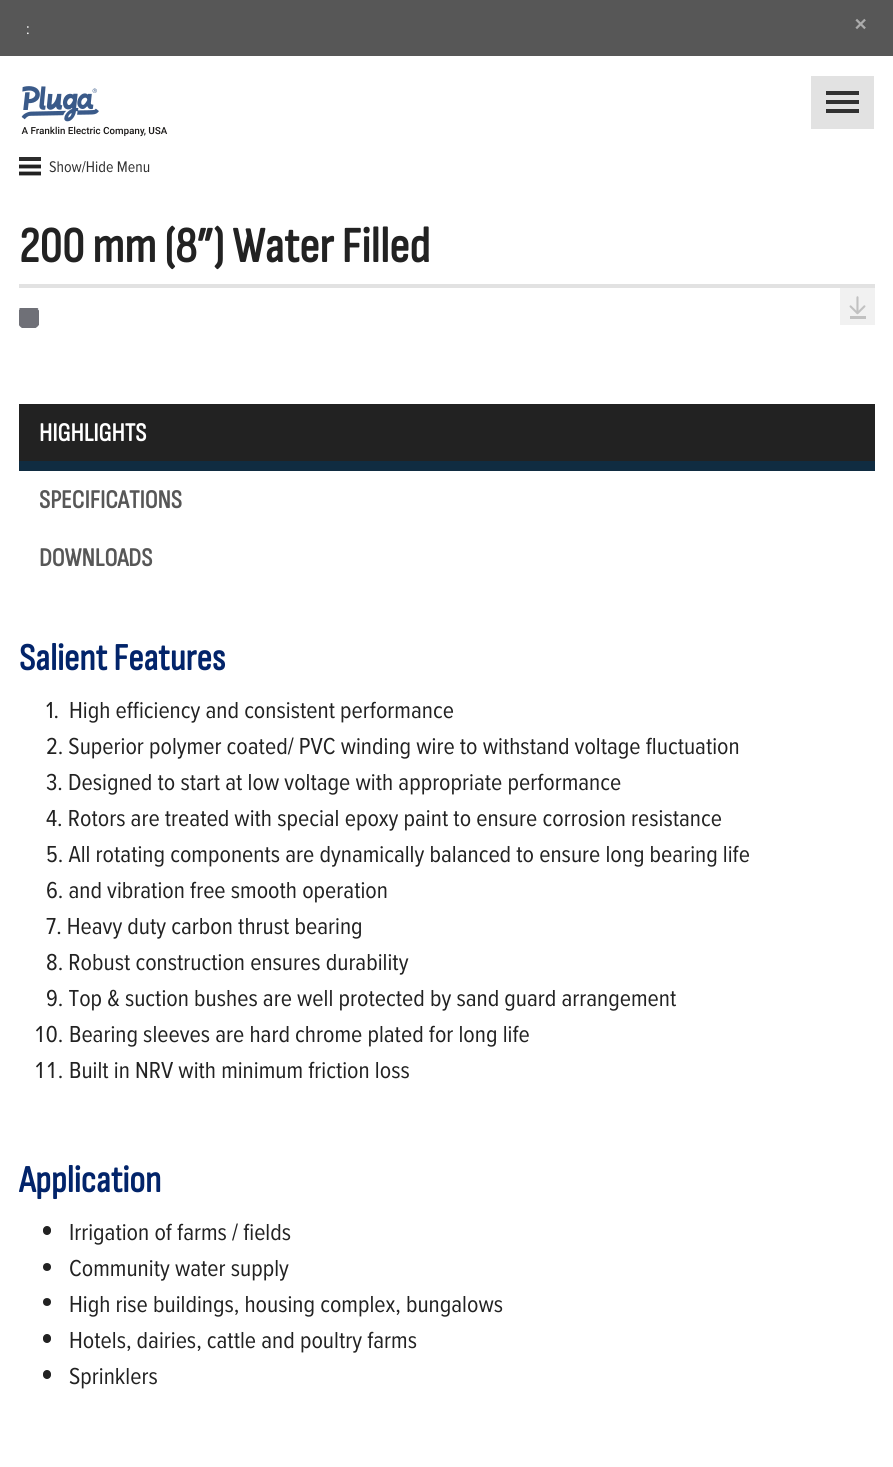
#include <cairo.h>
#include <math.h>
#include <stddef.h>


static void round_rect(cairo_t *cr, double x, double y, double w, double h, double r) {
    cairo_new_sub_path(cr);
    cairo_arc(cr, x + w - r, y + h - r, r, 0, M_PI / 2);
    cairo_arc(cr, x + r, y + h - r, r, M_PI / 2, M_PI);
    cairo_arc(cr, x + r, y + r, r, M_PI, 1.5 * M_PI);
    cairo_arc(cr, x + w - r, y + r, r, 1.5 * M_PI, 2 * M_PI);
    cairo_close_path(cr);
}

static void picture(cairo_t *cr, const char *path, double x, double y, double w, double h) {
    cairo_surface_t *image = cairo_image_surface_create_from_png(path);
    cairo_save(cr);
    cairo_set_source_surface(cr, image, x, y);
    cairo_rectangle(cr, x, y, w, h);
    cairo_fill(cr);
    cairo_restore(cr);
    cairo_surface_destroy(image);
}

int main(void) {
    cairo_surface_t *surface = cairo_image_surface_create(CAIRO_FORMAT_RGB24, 893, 1467);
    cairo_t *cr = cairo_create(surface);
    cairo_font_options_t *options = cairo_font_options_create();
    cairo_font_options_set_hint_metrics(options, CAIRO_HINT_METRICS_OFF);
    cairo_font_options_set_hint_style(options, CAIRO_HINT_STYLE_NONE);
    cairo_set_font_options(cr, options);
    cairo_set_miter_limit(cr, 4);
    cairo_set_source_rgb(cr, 1, 1, 1);
    cairo_paint(cr);
    cairo_set_source_rgb(cr, 0.945, 0.945, 0.945);
    cairo_rectangle(cr, 840, 288, 35, 37);
    cairo_fill(cr);
    cairo_set_source_rgb(cr, 0.341, 0.341, 0.341);
    cairo_rectangle(cr, 0, 0, 893, 56);
    cairo_fill(cr);
    cairo_select_font_face(cr, "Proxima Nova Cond", CAIRO_FONT_SLANT_NORMAL, CAIRO_FONT_WEIGHT_NORMAL);
    cairo_set_font_size(cr, 16);
    cairo_set_source_rgb(cr, 1, 1, 1);
    cairo_move_to(cr, 26, 34);
    cairo_show_text(cr, ":");
    cairo_select_font_face(cr, "Proxima Nova Cond", CAIRO_FONT_SLANT_NORMAL, CAIRO_FONT_WEIGHT_BOLD);
    cairo_set_font_size(cr, 30);
    cairo_set_source_rgb(cr, 0.671, 0.671, 0.671);
    cairo_move_to(cr, 854, 34);
    cairo_show_text(cr, "×");
    picture(cr, "img1.png", 21, 86, 147, 51);
    cairo_set_source_rgb(cr, 0.886, 0.886, 0.886);
    cairo_rectangle(cr, 811, 76, 63, 53);
    cairo_fill(cr);
    cairo_set_source_rgb(cr, 0.192, 0.192, 0.192);
    cairo_rectangle(cr, 826, 91, 33, 4);
    cairo_fill(cr);
    cairo_rectangle(cr, 826, 100, 33, 4);
    cairo_fill(cr);
    cairo_rectangle(cr, 826, 109, 33, 4);
    cairo_fill(cr);
    cairo_set_source_rgb(cr, 0.176, 0.176, 0.176);
    cairo_rectangle(cr, 19, 157, 22, 4);
    cairo_fill(cr);
    cairo_new_path(cr);
    cairo_move_to(cr, 19, 166.5);
    cairo_line_to(cr, 41, 166.5);
    cairo_move_to(cr, 19, 173.5);
    cairo_line_to(cr, 41, 173.5);
    cairo_set_source_rgb(cr, 0.133, 0.133, 0.133);
    cairo_set_line_width(cr, 3.8);
    cairo_stroke(cr);
    cairo_select_font_face(cr, "Proxima Nova Cond", CAIRO_FONT_SLANT_NORMAL, CAIRO_FONT_WEIGHT_NORMAL);
    cairo_set_font_size(cr, 16);
    cairo_set_source_rgb(cr, 0.192, 0.192, 0.192);
    cairo_move_to(cr, 49, 172);
    cairo_show_text(cr, "Show/Hide Menu");
    cairo_set_source_rgb(cr, 0.886, 0.886, 0.886);
    cairo_rectangle(cr, 19, 284, 856, 4);
    cairo_fill(cr);
    cairo_select_font_face(cr, "Sofia Sans Condensed", CAIRO_FONT_SLANT_NORMAL, CAIRO_FONT_WEIGHT_BOLD);
    cairo_set_font_size(cr, 50);
    cairo_set_source_rgb(cr, 0.133, 0.133, 0.133);
    cairo_move_to(cr, 19, 262);
    cairo_show_text(cr, "200 mm (8”) Water Filled");
    cairo_save(cr);
    cairo_rectangle(cr, 19, 308, 20, 20);
    cairo_clip(cr);
    cairo_set_source_rgb(cr, 0.435, 0.439, 0.467);
    cairo_arc(cr, 28.5, 317.5, 22.5, 0, 2 * M_PI);
    cairo_fill(cr);
    cairo_new_path(cr);
    cairo_move_to(cr, 38.5, 308);
    cairo_curve_to(cr, 41, 310.5, 42.5, 314, 42.5, 317.5);
    cairo_curve_to(cr, 42.5, 334, 18.5, 336.5, 15.5, 320);
    cairo_curve_to(cr, 14.5, 315.5, 16, 311, 19, 308);
    cairo_set_source_rgb(cr, 1, 1, 1);
    cairo_set_line_width(cr, 2.5);
    cairo_stroke(cr);
    cairo_restore(cr);
    picture(cr, "img2.png", 849, 296, 17, 23);
    cairo_rectangle(cr, 19, 404, 856, 57);
    cairo_fill(cr);
    cairo_set_source_rgb(cr, 0.063, 0.173, 0.255);
    cairo_rectangle(cr, 19, 461, 856, 10);
    cairo_fill(cr);
    cairo_set_font_size(cr, 26);
    cairo_set_source_rgb(cr, 1, 1, 1);
    cairo_move_to(cr, 39, 441);
    cairo_show_text(cr, "HIGHLIGHTS");
    cairo_set_source_rgb(cr, 0.341, 0.341, 0.341);
    cairo_move_to(cr, 39, 508);
    cairo_show_text(cr, "SPECIFICATIONS");
    cairo_move_to(cr, 39, 566);
    cairo_show_text(cr, "DOWNLOADS");
    cairo_set_font_size(cr, 38);
    cairo_set_source_rgb(cr, 0.008, 0.141, 0.416);
    cairo_move_to(cr, 19, 670);
    cairo_show_text(cr, "Salient Features");
    cairo_select_font_face(cr, "Proxima Nova Cond", CAIRO_FONT_SLANT_NORMAL, CAIRO_FONT_WEIGHT_NORMAL);
    cairo_set_font_size(cr, 24);
    cairo_set_source_rgb(cr, 0.133, 0.133, 0.133);
    cairo_move_to(cr, 46, 718);
    cairo_show_text(cr, "1.");
    cairo_move_to(cr, 69, 718);
    cairo_show_text(cr, "High efficiency and consistent performance");
    cairo_move_to(cr, 46, 754);
    cairo_show_text(cr, "2. Superior polymer coated/ PVC winding wire to withstand voltage fluctuation");
    cairo_move_to(cr, 46, 790);
    cairo_show_text(cr, "3. Designed to start at low voltage with appropriate performance");
    cairo_move_to(cr, 46, 826);
    cairo_show_text(cr, "4. Rotors are treated with special epoxy paint to ensure corrosion resistance");
    cairo_move_to(cr, 46, 862);
    cairo_show_text(cr, "5. All rotating components are dynamically balanced to ensure long bearing life");
    cairo_move_to(cr, 46, 898);
    cairo_show_text(cr, "6. and vibration free smooth operation");
    cairo_move_to(cr, 46, 934);
    cairo_show_text(cr, "7. Heavy duty carbon thrust bearing");
    cairo_move_to(cr, 46, 970);
    cairo_show_text(cr, "8. Robust construction ensures durability");
    cairo_move_to(cr, 46, 1006);
    cairo_show_text(cr, "9. Top & suction bushes are well protected by sand guard arrangement");
    cairo_select_font_face(cr, "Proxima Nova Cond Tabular", CAIRO_FONT_SLANT_NORMAL, CAIRO_FONT_WEIGHT_NORMAL);
    cairo_move_to(cr, 34, 1042);
    cairo_show_text(cr, "10.");
    cairo_select_font_face(cr, "Proxima Nova Cond", CAIRO_FONT_SLANT_NORMAL, CAIRO_FONT_WEIGHT_NORMAL);
    cairo_move_to(cr, 69, 1042);
    cairo_show_text(cr, "Bearing sleeves are hard chrome plated for long life");
    cairo_select_font_face(cr, "Proxima Nova Cond Tabular", CAIRO_FONT_SLANT_NORMAL, CAIRO_FONT_WEIGHT_NORMAL);
    cairo_move_to(cr, 34, 1078);
    cairo_show_text(cr, "11.");
    cairo_select_font_face(cr, "Proxima Nova Cond", CAIRO_FONT_SLANT_NORMAL, CAIRO_FONT_WEIGHT_NORMAL);
    cairo_move_to(cr, 69, 1078);
    cairo_show_text(cr, "Built in NRV with minimum friction loss");
    cairo_select_font_face(cr, "Sofia Sans Condensed", CAIRO_FONT_SLANT_NORMAL, CAIRO_FONT_WEIGHT_BOLD);
    cairo_set_font_size(cr, 38);
    cairo_set_source_rgb(cr, 0.008, 0.141, 0.416);
    cairo_move_to(cr, 19, 1192);
    cairo_show_text(cr, "Application");
    cairo_set_source_rgb(cr, 0.133, 0.133, 0.133);
    round_rect(cr, 43, 1226, 8, 9, 4);
    cairo_fill(cr);
    cairo_select_font_face(cr, "Proxima Nova Cond", CAIRO_FONT_SLANT_NORMAL, CAIRO_FONT_WEIGHT_NORMAL);
    cairo_set_font_size(cr, 24);
    cairo_move_to(cr, 69, 1240);
    cairo_show_text(cr, "Irrigation of farms / fields");
    cairo_new_path(cr);
    cairo_arc(cr, 47, 1267, 4, 0, 2 * M_PI);
    cairo_fill(cr);
    cairo_move_to(cr, 69, 1276);
    cairo_show_text(cr, "Community water supply");
    cairo_new_path(cr);
    cairo_arc(cr, 47, 1302, 4, 0, 2 * M_PI);
    cairo_fill(cr);
    cairo_move_to(cr, 69, 1312);
    cairo_show_text(cr, "High rise buildings, housing complex, bungalows");
    round_rect(cr, 43, 1334, 8, 9, 4);
    cairo_fill(cr);
    cairo_move_to(cr, 69, 1348);
    cairo_show_text(cr, "Hotels, dairies, cattle and poultry farms");
    round_rect(cr, 43, 1370, 8, 9, 4);
    cairo_fill(cr);
    cairo_move_to(cr, 69, 1384);
    cairo_show_text(cr, "Sprinklers");
    cairo_surface_write_to_png(surface, "page.png");
    cairo_font_options_destroy(options);
    cairo_destroy(cr);
    cairo_surface_destroy(surface);
    return 0;
}
